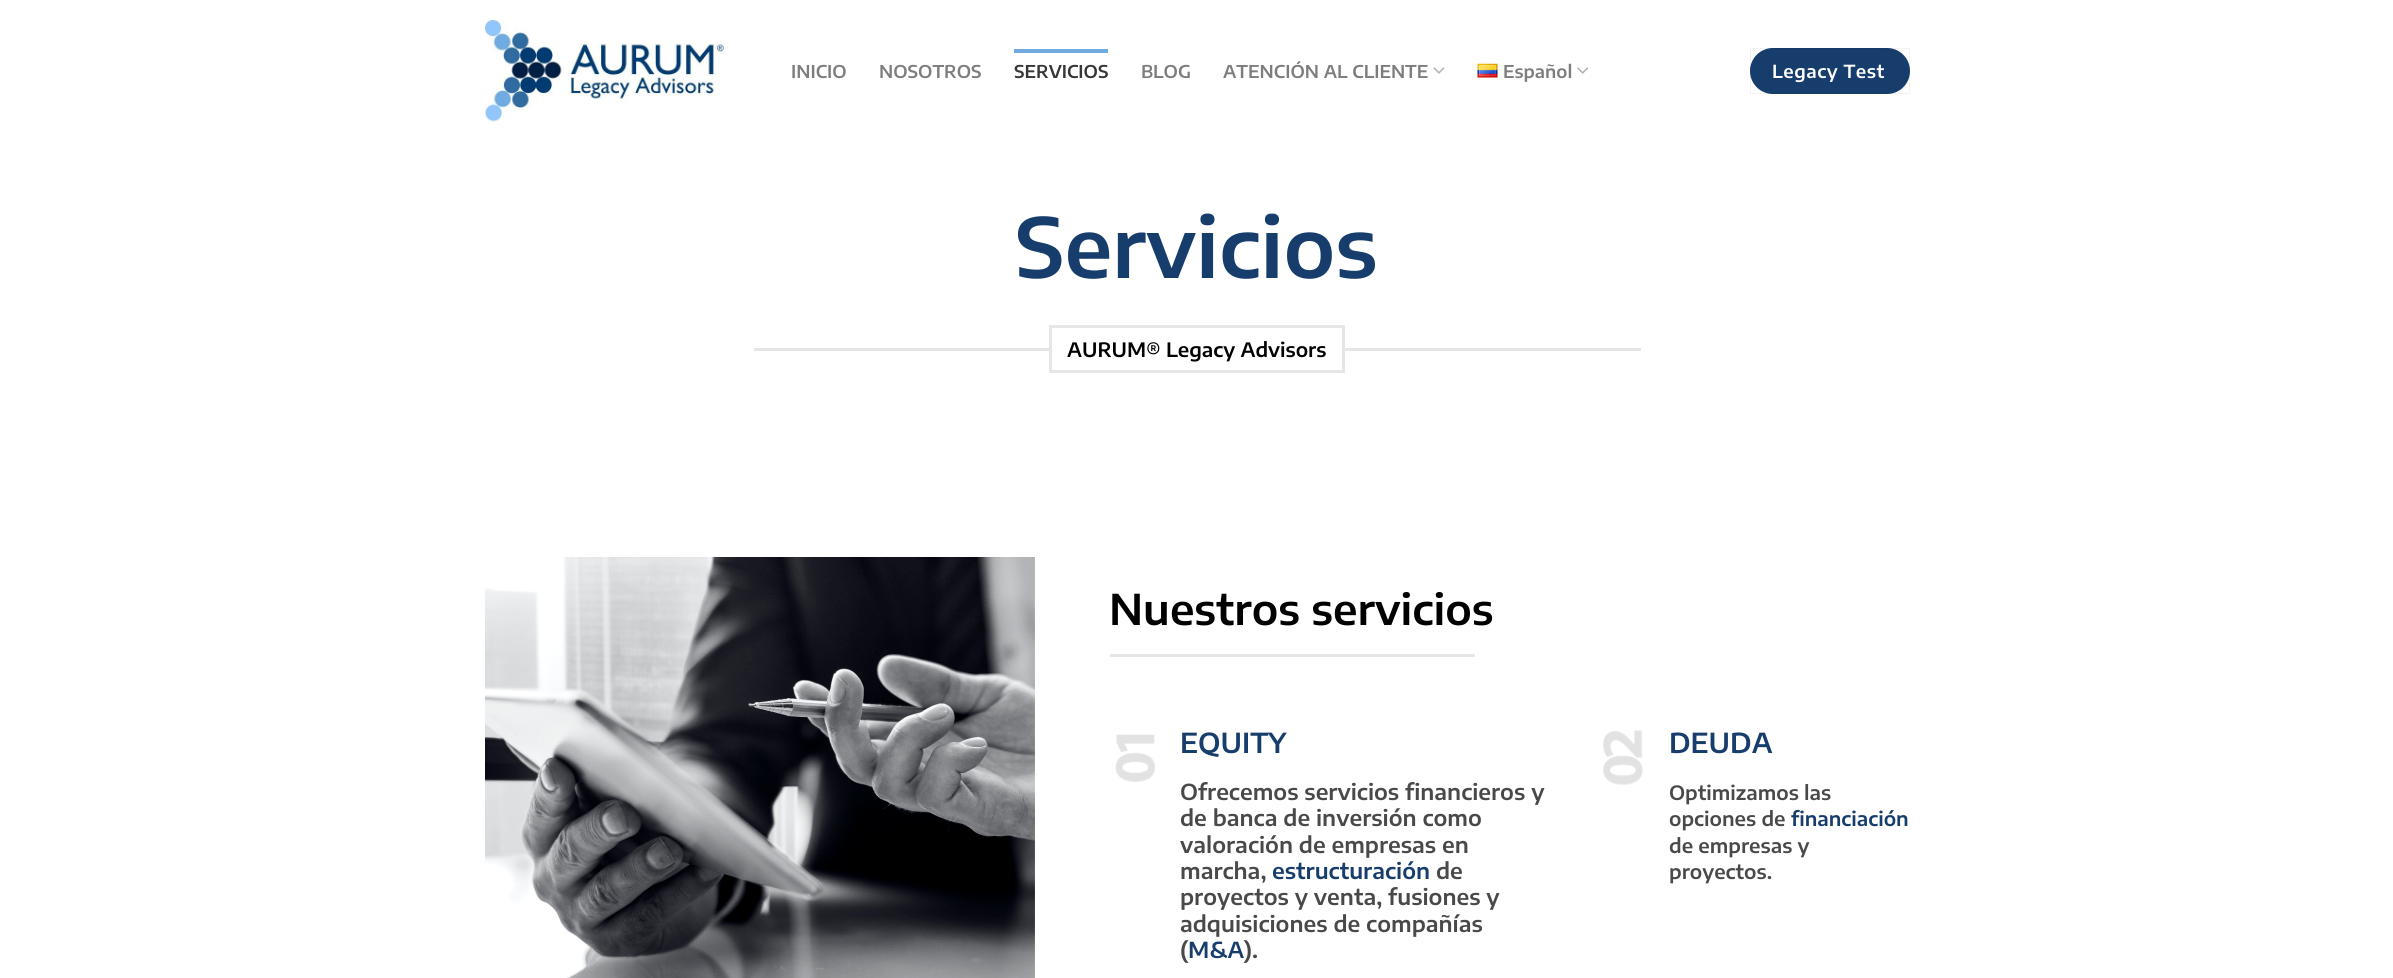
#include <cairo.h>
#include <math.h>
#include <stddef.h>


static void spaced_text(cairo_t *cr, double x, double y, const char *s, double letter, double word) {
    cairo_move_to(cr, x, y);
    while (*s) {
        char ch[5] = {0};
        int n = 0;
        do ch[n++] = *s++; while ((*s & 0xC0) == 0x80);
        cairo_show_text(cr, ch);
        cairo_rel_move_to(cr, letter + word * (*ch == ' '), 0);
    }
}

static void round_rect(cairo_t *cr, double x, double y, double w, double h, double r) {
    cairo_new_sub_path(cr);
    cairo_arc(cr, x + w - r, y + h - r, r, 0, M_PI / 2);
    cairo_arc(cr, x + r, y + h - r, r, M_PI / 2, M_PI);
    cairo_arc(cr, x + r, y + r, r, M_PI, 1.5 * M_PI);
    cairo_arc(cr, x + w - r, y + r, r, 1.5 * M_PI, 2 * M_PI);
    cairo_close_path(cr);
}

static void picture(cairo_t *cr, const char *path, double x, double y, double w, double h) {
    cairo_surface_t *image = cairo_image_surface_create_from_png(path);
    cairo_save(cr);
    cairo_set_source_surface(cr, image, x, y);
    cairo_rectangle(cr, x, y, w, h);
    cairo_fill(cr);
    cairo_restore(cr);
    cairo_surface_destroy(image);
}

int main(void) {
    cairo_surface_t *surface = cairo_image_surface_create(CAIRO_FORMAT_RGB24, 2393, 978);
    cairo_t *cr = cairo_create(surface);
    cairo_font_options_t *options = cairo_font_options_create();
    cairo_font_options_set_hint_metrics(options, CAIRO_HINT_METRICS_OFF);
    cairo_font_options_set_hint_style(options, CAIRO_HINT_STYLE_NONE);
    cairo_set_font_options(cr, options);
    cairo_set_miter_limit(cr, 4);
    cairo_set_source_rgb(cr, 1, 1, 1);
    cairo_paint(cr);
    picture(cr, "img1.png", 485, 20, 239, 102);
    cairo_select_font_face(cr, "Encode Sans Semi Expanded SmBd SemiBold", CAIRO_FONT_SLANT_NORMAL, CAIRO_FONT_WEIGHT_NORMAL);
    cairo_set_font_size(cr, 17.6);
    cairo_set_source_rgb(cr, 0.49, 0.49, 0.49);
    cairo_move_to(cr, 791, 78);
    cairo_show_text(cr, "INICIO");
    cairo_move_to(cr, 879, 78);
    cairo_show_text(cr, "NOSOTROS");
    cairo_set_source_rgb(cr, 0.443, 0.671, 0.871);
    cairo_rectangle(cr, 1014, 49, 94, 4);
    cairo_fill(cr);
    cairo_set_source_rgb(cr, 0.212, 0.212, 0.212);
    cairo_move_to(cr, 1014, 78);
    cairo_show_text(cr, "SERVICIOS");
    cairo_set_source_rgb(cr, 0.49, 0.49, 0.49);
    cairo_move_to(cr, 1141, 78);
    cairo_show_text(cr, "BLOG");
    cairo_move_to(cr, 1223, 78);
    cairo_show_text(cr, "ATENCIÓN AL CLIENTE");
    picture(cr, "img2.png", 1433, 67, 12, 7);
    picture(cr, "img3.png", 1477, 63, 21, 15);
    cairo_move_to(cr, 1503, 78);
    cairo_show_text(cr, "Español");
    picture(cr, "img4.png", 1577, 67, 12, 7);
    cairo_set_source_rgb(cr, 0.09, 0.239, 0.427);
    round_rect(cr, 1750, 48, 160, 46, 23);
    cairo_fill(cr);
    cairo_rectangle(cr, 1750.5, 48.5, 159, 45);
    cairo_set_source_rgba(cr, 0, 0, 0, 0.05);
    cairo_set_line_width(cr, 1);
    cairo_stroke(cr);
    cairo_set_font_size(cr, 18);
    cairo_set_source_rgb(cr, 1, 1, 1);
    spaced_text(cr, 1772, 78, "Legacy Test", 0.5, 0);
    cairo_set_font_size(cr, 82.5);
    cairo_set_source_rgb(cr, 0.09, 0.239, 0.427);
    cairo_move_to(cr, 1015, 278);
    cairo_show_text(cr, "Servicios");
    cairo_set_source_rgb(cr, 0.902, 0.902, 0.902);
    cairo_rectangle(cr, 754, 348, 295, 3);
    cairo_fill(cr);
    cairo_rectangle(cr, 1050.5, 326.5, 293, 45);
    cairo_set_line_width(cr, 3);
    cairo_stroke(cr);
    cairo_set_font_size(cr, 19.75);
    cairo_set_source_rgb(cr, 0, 0, 0);
    cairo_move_to(cr, 1067, 357);
    cairo_show_text(cr, "AURUM® Legacy Advisors");
    cairo_set_source_rgb(cr, 0.902, 0.902, 0.902);
    cairo_rectangle(cr, 1345, 348, 296, 3);
    cairo_fill(cr);
    picture(cr, "img5.png", 485, 557, 550, 421);
    cairo_set_font_size(cr, 42.25);
    cairo_set_source_rgb(cr, 0, 0, 0);
    cairo_move_to(cr, 1109, 625);
    cairo_show_text(cr, "Nuestros servicios");
    cairo_set_source_rgb(cr, 0.902, 0.902, 0.902);
    cairo_rectangle(cr, 1110, 654, 365, 3);
    cairo_fill(cr);
    picture(cr, "img6.png", 1115, 734, 41, 48);
    cairo_set_font_size(cr, 27.5);
    cairo_set_source_rgb(cr, 0.09, 0.239, 0.427);
    cairo_move_to(cr, 1180, 753);
    cairo_show_text(cr, "EQUITY");
    cairo_set_font_size(cr, 22);
    cairo_set_source_rgb(cr, 0.286, 0.286, 0.286);
    cairo_move_to(cr, 1180, 800);
    cairo_show_text(cr, "Ofrecemos servicios financieros y");
    cairo_move_to(cr, 1180, 826);
    cairo_show_text(cr, "de banca de inversión como");
    cairo_move_to(cr, 1180, 853);
    cairo_show_text(cr, "valoración de empresas en");
    cairo_move_to(cr, 1180, 879);
    cairo_show_text(cr, "marcha,");
    cairo_set_source_rgb(cr, 0.09, 0.239, 0.427);
    cairo_move_to(cr, 1272, 879);
    cairo_show_text(cr, "estructuración");
    cairo_set_source_rgb(cr, 0.286, 0.286, 0.286);
    cairo_move_to(cr, 1436, 879);
    cairo_show_text(cr, "de");
    cairo_move_to(cr, 1180, 905);
    cairo_show_text(cr, "proyectos y venta, fusiones y");
    cairo_move_to(cr, 1180, 932);
    cairo_show_text(cr, "adquisiciones de compañías");
    cairo_move_to(cr, 1180, 958);
    cairo_show_text(cr, "(");
    cairo_set_source_rgb(cr, 0.09, 0.239, 0.427);
    cairo_move_to(cr, 1188, 958);
    cairo_show_text(cr, "M&A");
    cairo_set_source_rgb(cr, 0.286, 0.286, 0.286);
    cairo_move_to(cr, 1244, 958);
    cairo_show_text(cr, ").");
    picture(cr, "img7.png", 1603, 730, 40, 55);
    cairo_set_font_size(cr, 27.5);
    cairo_set_source_rgb(cr, 0.09, 0.239, 0.427);
    cairo_move_to(cr, 1669, 753);
    cairo_show_text(cr, "DEUDA");
    cairo_set_font_size(cr, 19.75);
    cairo_set_source_rgb(cr, 0.286, 0.286, 0.286);
    cairo_move_to(cr, 1669, 800);
    cairo_show_text(cr, "Optimizamos las");
    cairo_move_to(cr, 1669, 826);
    cairo_show_text(cr, "opciones de");
    cairo_set_source_rgb(cr, 0.09, 0.239, 0.427);
    cairo_move_to(cr, 1791, 826);
    cairo_show_text(cr, "financiación");
    cairo_set_source_rgb(cr, 0.286, 0.286, 0.286);
    cairo_move_to(cr, 1669, 853);
    cairo_show_text(cr, "de empresas y");
    cairo_move_to(cr, 1669, 879);
    cairo_show_text(cr, "proyectos.");
    cairo_surface_write_to_png(surface, "page.png");
    cairo_font_options_destroy(options);
    cairo_destroy(cr);
    cairo_surface_destroy(surface);
    return 0;
}
